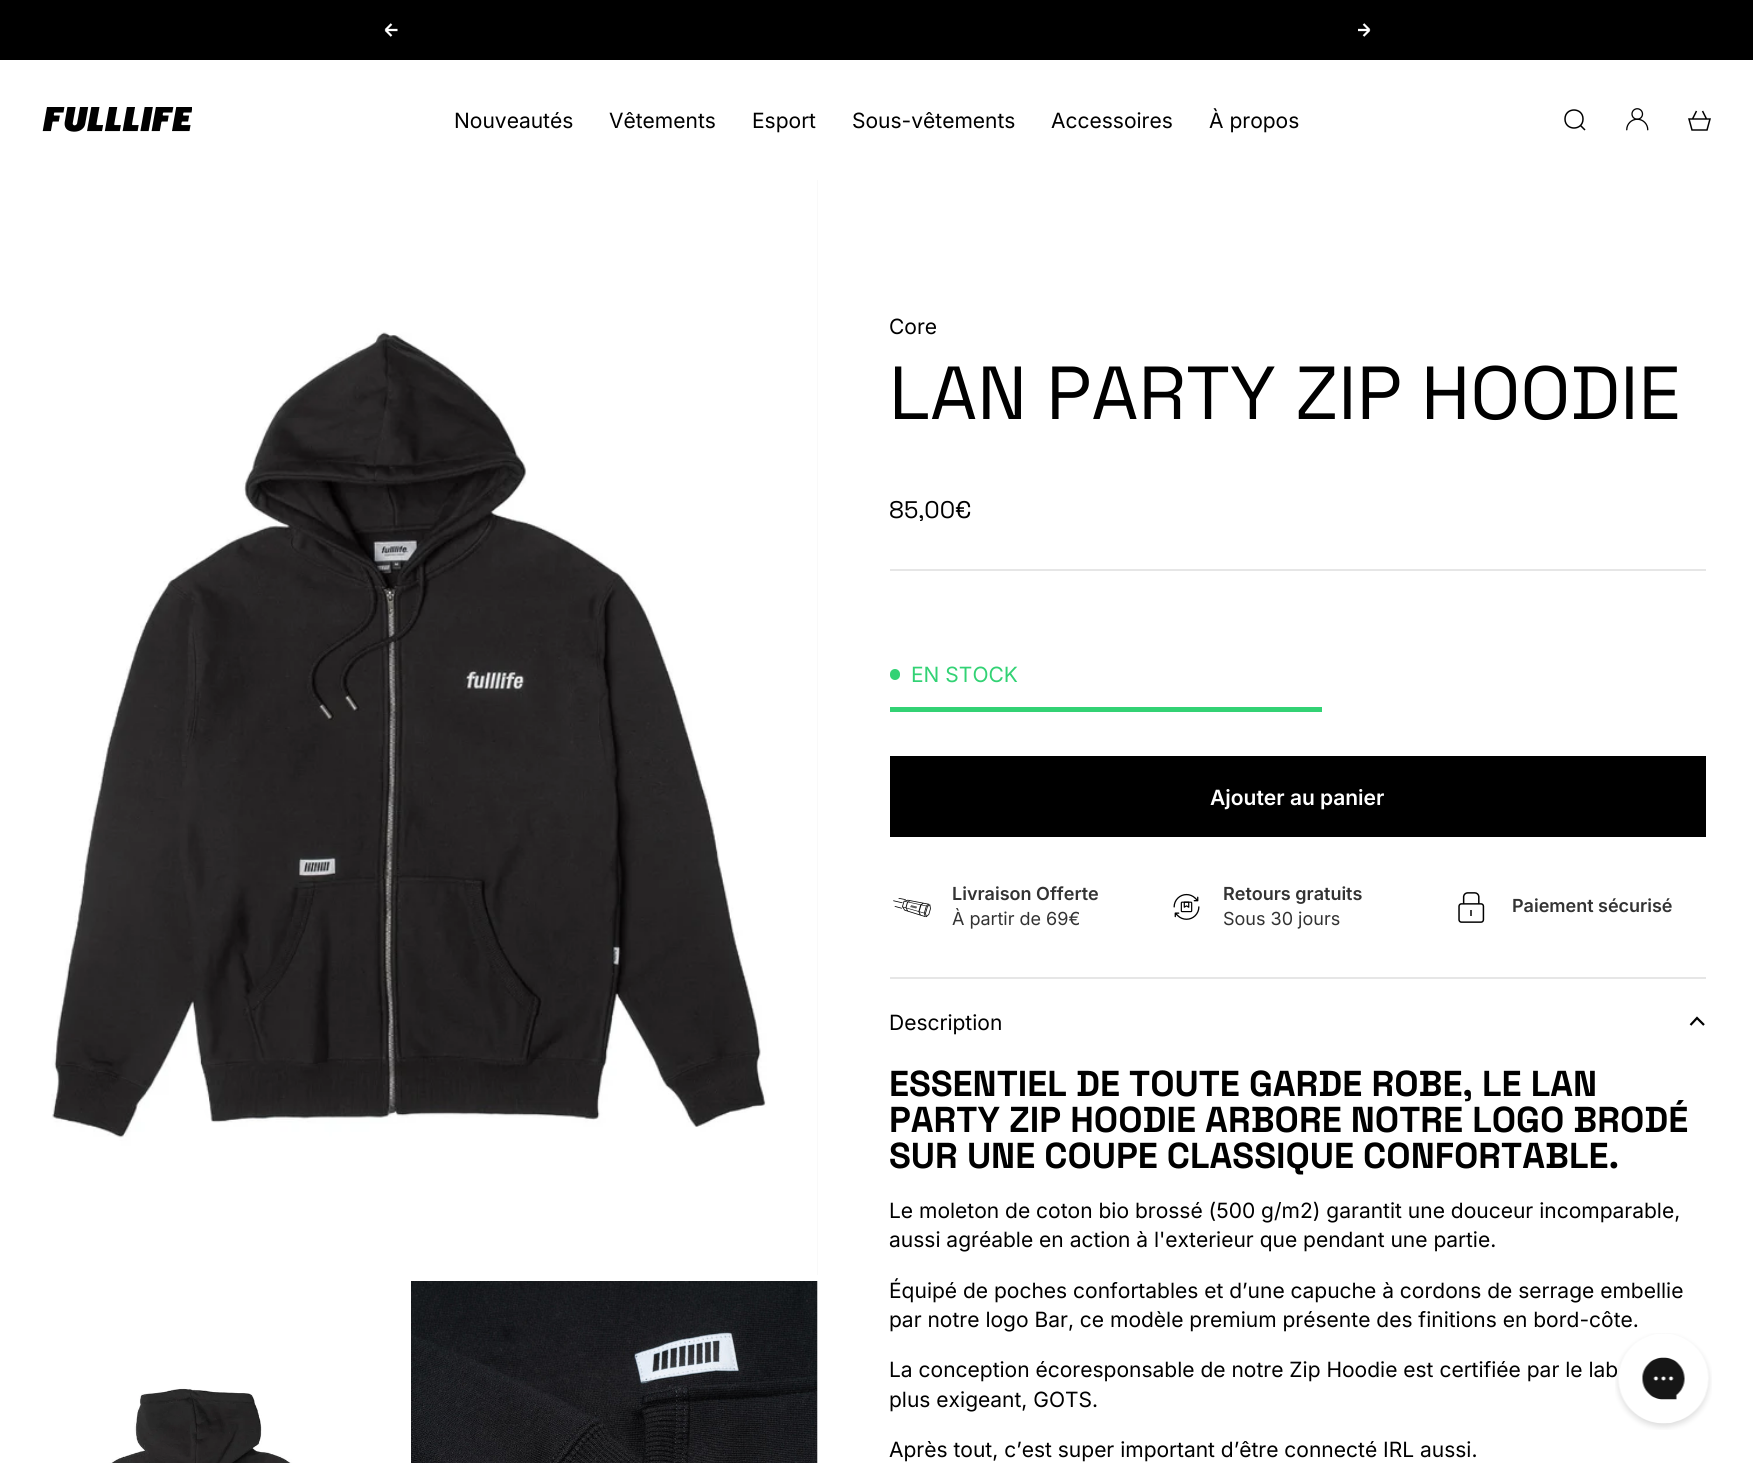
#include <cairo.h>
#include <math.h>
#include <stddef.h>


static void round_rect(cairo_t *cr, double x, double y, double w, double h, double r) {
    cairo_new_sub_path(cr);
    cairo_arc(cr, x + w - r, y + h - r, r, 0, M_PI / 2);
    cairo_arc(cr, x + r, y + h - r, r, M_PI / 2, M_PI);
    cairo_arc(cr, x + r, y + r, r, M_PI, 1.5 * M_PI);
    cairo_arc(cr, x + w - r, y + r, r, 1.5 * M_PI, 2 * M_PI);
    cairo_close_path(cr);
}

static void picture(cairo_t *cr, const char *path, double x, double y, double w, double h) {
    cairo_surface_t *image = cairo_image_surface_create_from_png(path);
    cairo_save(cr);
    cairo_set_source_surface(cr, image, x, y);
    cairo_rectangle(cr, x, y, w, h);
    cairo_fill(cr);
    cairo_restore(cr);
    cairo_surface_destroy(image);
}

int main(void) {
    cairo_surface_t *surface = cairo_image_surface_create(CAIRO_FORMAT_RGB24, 1753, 1463);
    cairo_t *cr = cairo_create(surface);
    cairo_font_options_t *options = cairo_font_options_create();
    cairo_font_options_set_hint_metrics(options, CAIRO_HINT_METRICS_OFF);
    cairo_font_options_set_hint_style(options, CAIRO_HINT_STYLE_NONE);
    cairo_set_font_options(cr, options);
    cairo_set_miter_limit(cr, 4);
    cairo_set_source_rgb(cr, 1, 1, 1);
    cairo_paint(cr);
    cairo_set_source_rgb(cr, 0, 0, 0);
    cairo_rectangle(cr, 0, 0, 1753, 60);
    cairo_fill(cr);
    picture(cr, "img1.png", 384, 23, 14, 14);
    picture(cr, "img2.png", 1358, 23, 13, 14);
    picture(cr, "img3.png", 42, 107, 150, 25);
    cairo_select_font_face(cr, "Inter", CAIRO_FONT_SLANT_NORMAL, CAIRO_FONT_WEIGHT_NORMAL);
    cairo_set_font_size(cr, 21);
    cairo_move_to(cr, 454, 128);
    cairo_show_text(cr, "Nouveautés");
    cairo_move_to(cr, 609, 128);
    cairo_show_text(cr, "Vêtements");
    cairo_move_to(cr, 752, 128);
    cairo_show_text(cr, "Esport");
    cairo_move_to(cr, 852, 128);
    cairo_show_text(cr, "Sous-vêtements");
    cairo_move_to(cr, 1051, 128);
    cairo_show_text(cr, "Accessoires");
    cairo_move_to(cr, 1209, 128);
    cairo_show_text(cr, "À propos");
    cairo_new_path(cr);
    cairo_move_to(cr, 1565, 119);
    cairo_curve_to(cr, 1565, 131, 1583, 131, 1583, 119);
    cairo_curve_to(cr, 1583, 107, 1565, 107, 1565, 119);
    cairo_close_path(cr);
    cairo_move_to(cr, 1580.5, 125.5);
    cairo_line_to(cr, 1585, 130);
    cairo_set_line_width(cr, 1.5);
    cairo_stroke(cr);
    picture(cr, "img4.png", 1626, 108, 23, 23);
    cairo_new_path(cr);
    cairo_move_to(cr, 1692, 130);
    cairo_line_to(cr, 1689, 119);
    cairo_line_to(cr, 1710, 119);
    cairo_line_to(cr, 1707, 130);
    cairo_close_path(cr);
    cairo_move_to(cr, 1692.5, 119);
    cairo_line_to(cr, 1696.5, 111);
    cairo_move_to(cr, 1706.5, 119);
    cairo_line_to(cr, 1702.5, 111);
    cairo_stroke(cr);
    cairo_set_source_rgb(cr, 0.973, 0.973, 0.973);
    cairo_rectangle(cr, 817, 180, 1, 1095);
    cairo_fill(cr);
    picture(cr, "img5.png", 0, 180, 817, 1095);
    picture(cr, "img6.png", 0, 1281, 405, 182);
    cairo_rectangle(cr, 817, 1281, 1, 182);
    cairo_fill(cr);
    picture(cr, "img7.png", 411, 1281, 407, 182);
    cairo_set_source_rgb(cr, 0, 0, 0);
    cairo_move_to(cr, 889, 334);
    cairo_show_text(cr, "Core");
    cairo_select_font_face(cr, "Space Grotesk Light", CAIRO_FONT_SLANT_NORMAL, CAIRO_FONT_WEIGHT_NORMAL);
    cairo_set_font_size(cr, 75);
    cairo_move_to(cr, 889, 419);
    cairo_show_text(cr, "LAN PARTY ZIP HOODIE");
    cairo_set_font_size(cr, 24);
    cairo_move_to(cr, 889, 518);
    cairo_show_text(cr, "85,00€");
    cairo_set_source_rgb(cr, 0.902, 0.902, 0.902);
    cairo_rectangle(cr, 890, 569, 816, 2);
    cairo_fill(cr);
    cairo_set_source_rgb(cr, 0.196, 0.824, 0.455);
    round_rect(cr, 890, 669, 10, 11, 5);
    cairo_fill(cr);
    cairo_select_font_face(cr, "Inter", CAIRO_FONT_SLANT_NORMAL, CAIRO_FONT_WEIGHT_NORMAL);
    cairo_set_font_size(cr, 21);
    cairo_move_to(cr, 911, 682);
    cairo_show_text(cr, "EN STOCK");
    cairo_rectangle(cr, 890, 707, 432, 5);
    cairo_fill(cr);
    cairo_set_source_rgb(cr, 0, 0, 0);
    cairo_rectangle(cr, 890, 756, 816, 81);
    cairo_fill(cr);
    cairo_select_font_face(cr, "Inter SemiBold", CAIRO_FONT_SLANT_NORMAL, CAIRO_FONT_WEIGHT_NORMAL);
    cairo_set_source_rgb(cr, 1, 1, 1);
    cairo_move_to(cr, 1210, 805);
    cairo_show_text(cr, "Ajouter au panier");
    picture(cr, "img8.png", 893, 898, 38, 20);
    cairo_set_font_size(cr, 18);
    cairo_set_source_rgb(cr, 0.2, 0.2, 0.2);
    cairo_move_to(cr, 952, 900);
    cairo_show_text(cr, "Livraison Offerte");
    cairo_select_font_face(cr, "Inter", CAIRO_FONT_SLANT_NORMAL, CAIRO_FONT_WEIGHT_NORMAL);
    cairo_move_to(cr, 952, 925);
    cairo_show_text(cr, "À partir de 69€");
    picture(cr, "img9.png", 1173, 893, 27, 27);
    cairo_select_font_face(cr, "Inter SemiBold", CAIRO_FONT_SLANT_NORMAL, CAIRO_FONT_WEIGHT_NORMAL);
    cairo_move_to(cr, 1223, 900);
    cairo_show_text(cr, "Retours gratuits");
    cairo_select_font_face(cr, "Inter", CAIRO_FONT_SLANT_NORMAL, CAIRO_FONT_WEIGHT_NORMAL);
    cairo_move_to(cr, 1223, 925);
    cairo_show_text(cr, "Sous 30 jours");
    picture(cr, "img10.png", 1458, 892, 27, 31);
    cairo_select_font_face(cr, "Inter SemiBold", CAIRO_FONT_SLANT_NORMAL, CAIRO_FONT_WEIGHT_NORMAL);
    cairo_move_to(cr, 1512, 912);
    cairo_show_text(cr, "Paiement sécurisé");
    cairo_set_source_rgb(cr, 0.902, 0.902, 0.902);
    cairo_rectangle(cr, 890, 977, 816, 2);
    cairo_fill(cr);
    cairo_select_font_face(cr, "Inter", CAIRO_FONT_SLANT_NORMAL, CAIRO_FONT_WEIGHT_NORMAL);
    cairo_set_font_size(cr, 21);
    cairo_set_source_rgb(cr, 0, 0, 0);
    cairo_move_to(cr, 889, 1030);
    cairo_show_text(cr, "Description");
    cairo_new_path(cr);
    cairo_move_to(cr, 1690.5, 1025);
    cairo_line_to(cr, 1697, 1018);
    cairo_line_to(cr, 1704, 1025);
    cairo_set_line_width(cr, 2.2);
    cairo_stroke(cr);
    cairo_select_font_face(cr, "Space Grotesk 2 Light", CAIRO_FONT_SLANT_NORMAL, CAIRO_FONT_WEIGHT_NORMAL);
    cairo_set_font_size(cr, 36);
    cairo_move_to(cr, 889, 1096);
    cairo_show_text(cr, "ESSENTIEL DE TOUTE GARDE ROBE, LE LAN");
    cairo_move_to(cr, 889, 1132);
    cairo_show_text(cr, "PARTY ZIP HOODIE ARBORE NOTRE LOGO BRODÉ");
    cairo_move_to(cr, 889, 1168);
    cairo_show_text(cr, "SUR UNE COUPE CLASSIQUE CONFORTABLE.");
    cairo_select_font_face(cr, "Inter", CAIRO_FONT_SLANT_NORMAL, CAIRO_FONT_WEIGHT_NORMAL);
    cairo_set_font_size(cr, 21);
    cairo_move_to(cr, 889, 1218);
    cairo_show_text(cr, "Le moleton de coton bio brossé (500 g/m2) garantit une douceur incomparable,");
    cairo_move_to(cr, 889, 1247);
    cairo_show_text(cr, "aussi agréable en action à l'exterieur que pendant une partie.");
    cairo_move_to(cr, 889, 1298);
    cairo_show_text(cr, "Équipé de poches confortables et d’une capuche à cordons de serrage embellie");
    cairo_move_to(cr, 889, 1327);
    cairo_show_text(cr, "par notre logo Bar, ce modèle premium présente des finitions en bord-côte.");
    cairo_move_to(cr, 889, 1377);
    cairo_show_text(cr, "La conception écoresponsable de notre Zip Hoodie est certifiée par le lab");
    cairo_move_to(cr, 889, 1407);
    cairo_show_text(cr, "plus exigeant, GOTS.");
    cairo_move_to(cr, 889, 1457);
    cairo_show_text(cr, "Après tout, c’est super important d’être connecté IRL aussi.");
    picture(cr, "img11.png", 1615, 1333, 97, 97);
    cairo_surface_write_to_png(surface, "page.png");
    cairo_font_options_destroy(options);
    cairo_destroy(cr);
    cairo_surface_destroy(surface);
    return 0;
}
